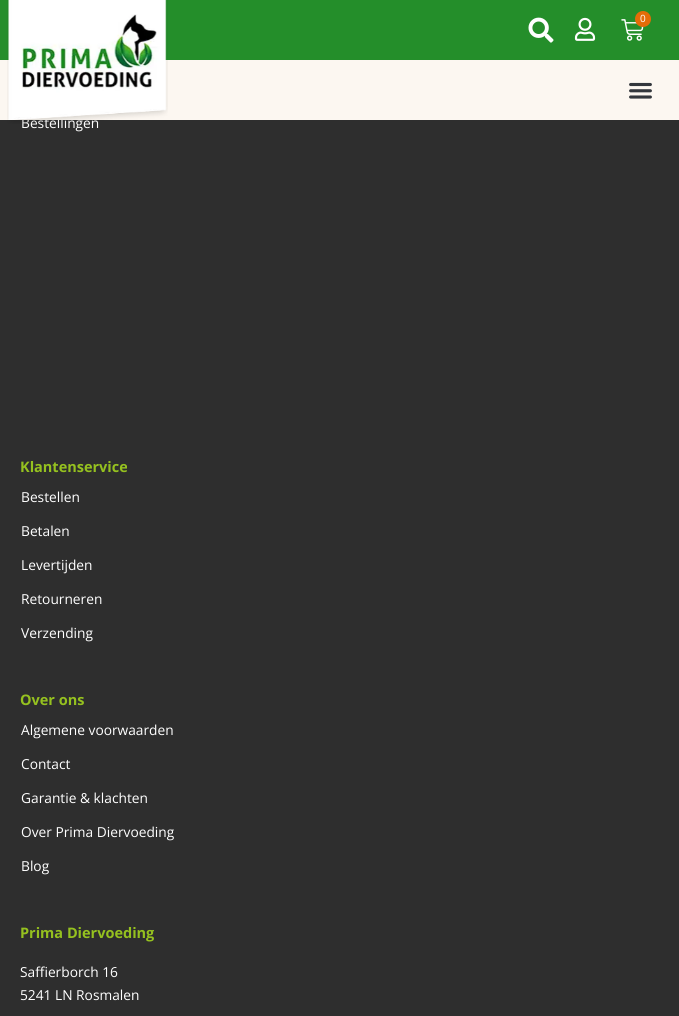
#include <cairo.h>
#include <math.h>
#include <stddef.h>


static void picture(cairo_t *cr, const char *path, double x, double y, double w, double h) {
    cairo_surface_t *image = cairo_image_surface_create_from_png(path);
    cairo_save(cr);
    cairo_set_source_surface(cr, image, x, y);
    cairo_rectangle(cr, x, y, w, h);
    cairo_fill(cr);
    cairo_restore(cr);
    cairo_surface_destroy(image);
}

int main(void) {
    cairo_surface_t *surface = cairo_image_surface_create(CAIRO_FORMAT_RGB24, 679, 1016);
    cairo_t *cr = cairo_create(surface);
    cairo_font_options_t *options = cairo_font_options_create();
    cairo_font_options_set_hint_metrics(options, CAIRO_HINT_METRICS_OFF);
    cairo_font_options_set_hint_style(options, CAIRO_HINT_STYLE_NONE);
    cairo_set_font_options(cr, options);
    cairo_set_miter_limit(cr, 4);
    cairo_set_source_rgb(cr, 0.18, 0.18, 0.18);
    cairo_paint(cr);
    cairo_set_source_rgb(cr, 0.141, 0.557, 0.165);
    cairo_rectangle(cr, 0, 0, 679, 60);
    cairo_fill(cr);
    cairo_select_font_face(cr, "Open Sans", CAIRO_FONT_SLANT_NORMAL, CAIRO_FONT_WEIGHT_NORMAL);
    cairo_set_font_size(cr, 13.75);
    cairo_set_source_rgb(cr, 1, 1, 1);
    cairo_move_to(cr, 21, 128);
    cairo_show_text(cr, "Bestellingen");
    cairo_set_source_rgb(cr, 0.988, 0.965, 0.945);
    cairo_rectangle(cr, 0, 60, 679, 60);
    cairo_fill(cr);
    picture(cr, "img1.png", 7, 0, 161, 124);
    picture(cr, "img2.png", 528, 17, 26, 26);
    picture(cr, "img3.png", 574, 17, 22, 24);
    picture(cr, "img4.png", 621, 19, 23, 22);
    cairo_set_source_rgb(cr, 0.89, 0.424, 0.035);
    cairo_arc(cr, 643, 19, 8, 0, 2 * M_PI);
    cairo_fill(cr);
    cairo_set_font_size(cr, 10);
    cairo_set_source_rgb(cr, 1, 1, 1);
    cairo_move_to(cr, 640, 22);
    cairo_show_text(cr, "0");
    picture(cr, "img5.png", 629, 82, 23, 17);
    cairo_select_font_face(cr, "Open Sans", CAIRO_FONT_SLANT_NORMAL, CAIRO_FONT_WEIGHT_BOLD);
    cairo_set_font_size(cr, 14.5);
    cairo_set_source_rgb(cr, 0.584, 0.757, 0.122);
    cairo_move_to(cr, 20, 472);
    cairo_show_text(cr, "Klantenservice");
    cairo_select_font_face(cr, "Open Sans", CAIRO_FONT_SLANT_NORMAL, CAIRO_FONT_WEIGHT_NORMAL);
    cairo_set_font_size(cr, 13.75);
    cairo_set_source_rgb(cr, 1, 1, 1);
    cairo_move_to(cr, 21, 502);
    cairo_show_text(cr, "Bestellen");
    cairo_move_to(cr, 21, 536);
    cairo_show_text(cr, "Betalen");
    cairo_move_to(cr, 21, 570);
    cairo_show_text(cr, "Levertijden");
    cairo_move_to(cr, 21, 604);
    cairo_show_text(cr, "Retourneren");
    cairo_move_to(cr, 21, 638);
    cairo_show_text(cr, "Verzending");
    cairo_select_font_face(cr, "Open Sans", CAIRO_FONT_SLANT_NORMAL, CAIRO_FONT_WEIGHT_BOLD);
    cairo_set_font_size(cr, 14.5);
    cairo_set_source_rgb(cr, 0.584, 0.757, 0.122);
    cairo_move_to(cr, 20, 705);
    cairo_show_text(cr, "Over ons");
    cairo_select_font_face(cr, "Open Sans", CAIRO_FONT_SLANT_NORMAL, CAIRO_FONT_WEIGHT_NORMAL);
    cairo_set_font_size(cr, 13.75);
    cairo_set_source_rgb(cr, 1, 1, 1);
    cairo_move_to(cr, 21, 735);
    cairo_show_text(cr, "Algemene voorwaarden");
    cairo_move_to(cr, 21, 769);
    cairo_show_text(cr, "Contact");
    cairo_move_to(cr, 21, 803);
    cairo_show_text(cr, "Garantie & klachten");
    cairo_move_to(cr, 21, 837);
    cairo_show_text(cr, "Over Prima Diervoeding");
    cairo_move_to(cr, 21, 871);
    cairo_show_text(cr, "Blog");
    cairo_select_font_face(cr, "Open Sans", CAIRO_FONT_SLANT_NORMAL, CAIRO_FONT_WEIGHT_BOLD);
    cairo_set_font_size(cr, 14.5);
    cairo_set_source_rgb(cr, 0.584, 0.757, 0.122);
    cairo_move_to(cr, 20, 938);
    cairo_show_text(cr, "Prima Diervoeding");
    cairo_select_font_face(cr, "Open Sans", CAIRO_FONT_SLANT_NORMAL, CAIRO_FONT_WEIGHT_NORMAL);
    cairo_set_font_size(cr, 13.75);
    cairo_set_source_rgb(cr, 1, 1, 1);
    cairo_move_to(cr, 20, 977);
    cairo_show_text(cr, "Saffierborch 16");
    cairo_move_to(cr, 20, 1000);
    cairo_show_text(cr, "5241 LN Rosmalen");
    cairo_surface_write_to_png(surface, "page.png");
    cairo_font_options_destroy(options);
    cairo_destroy(cr);
    cairo_surface_destroy(surface);
    return 0;
}
